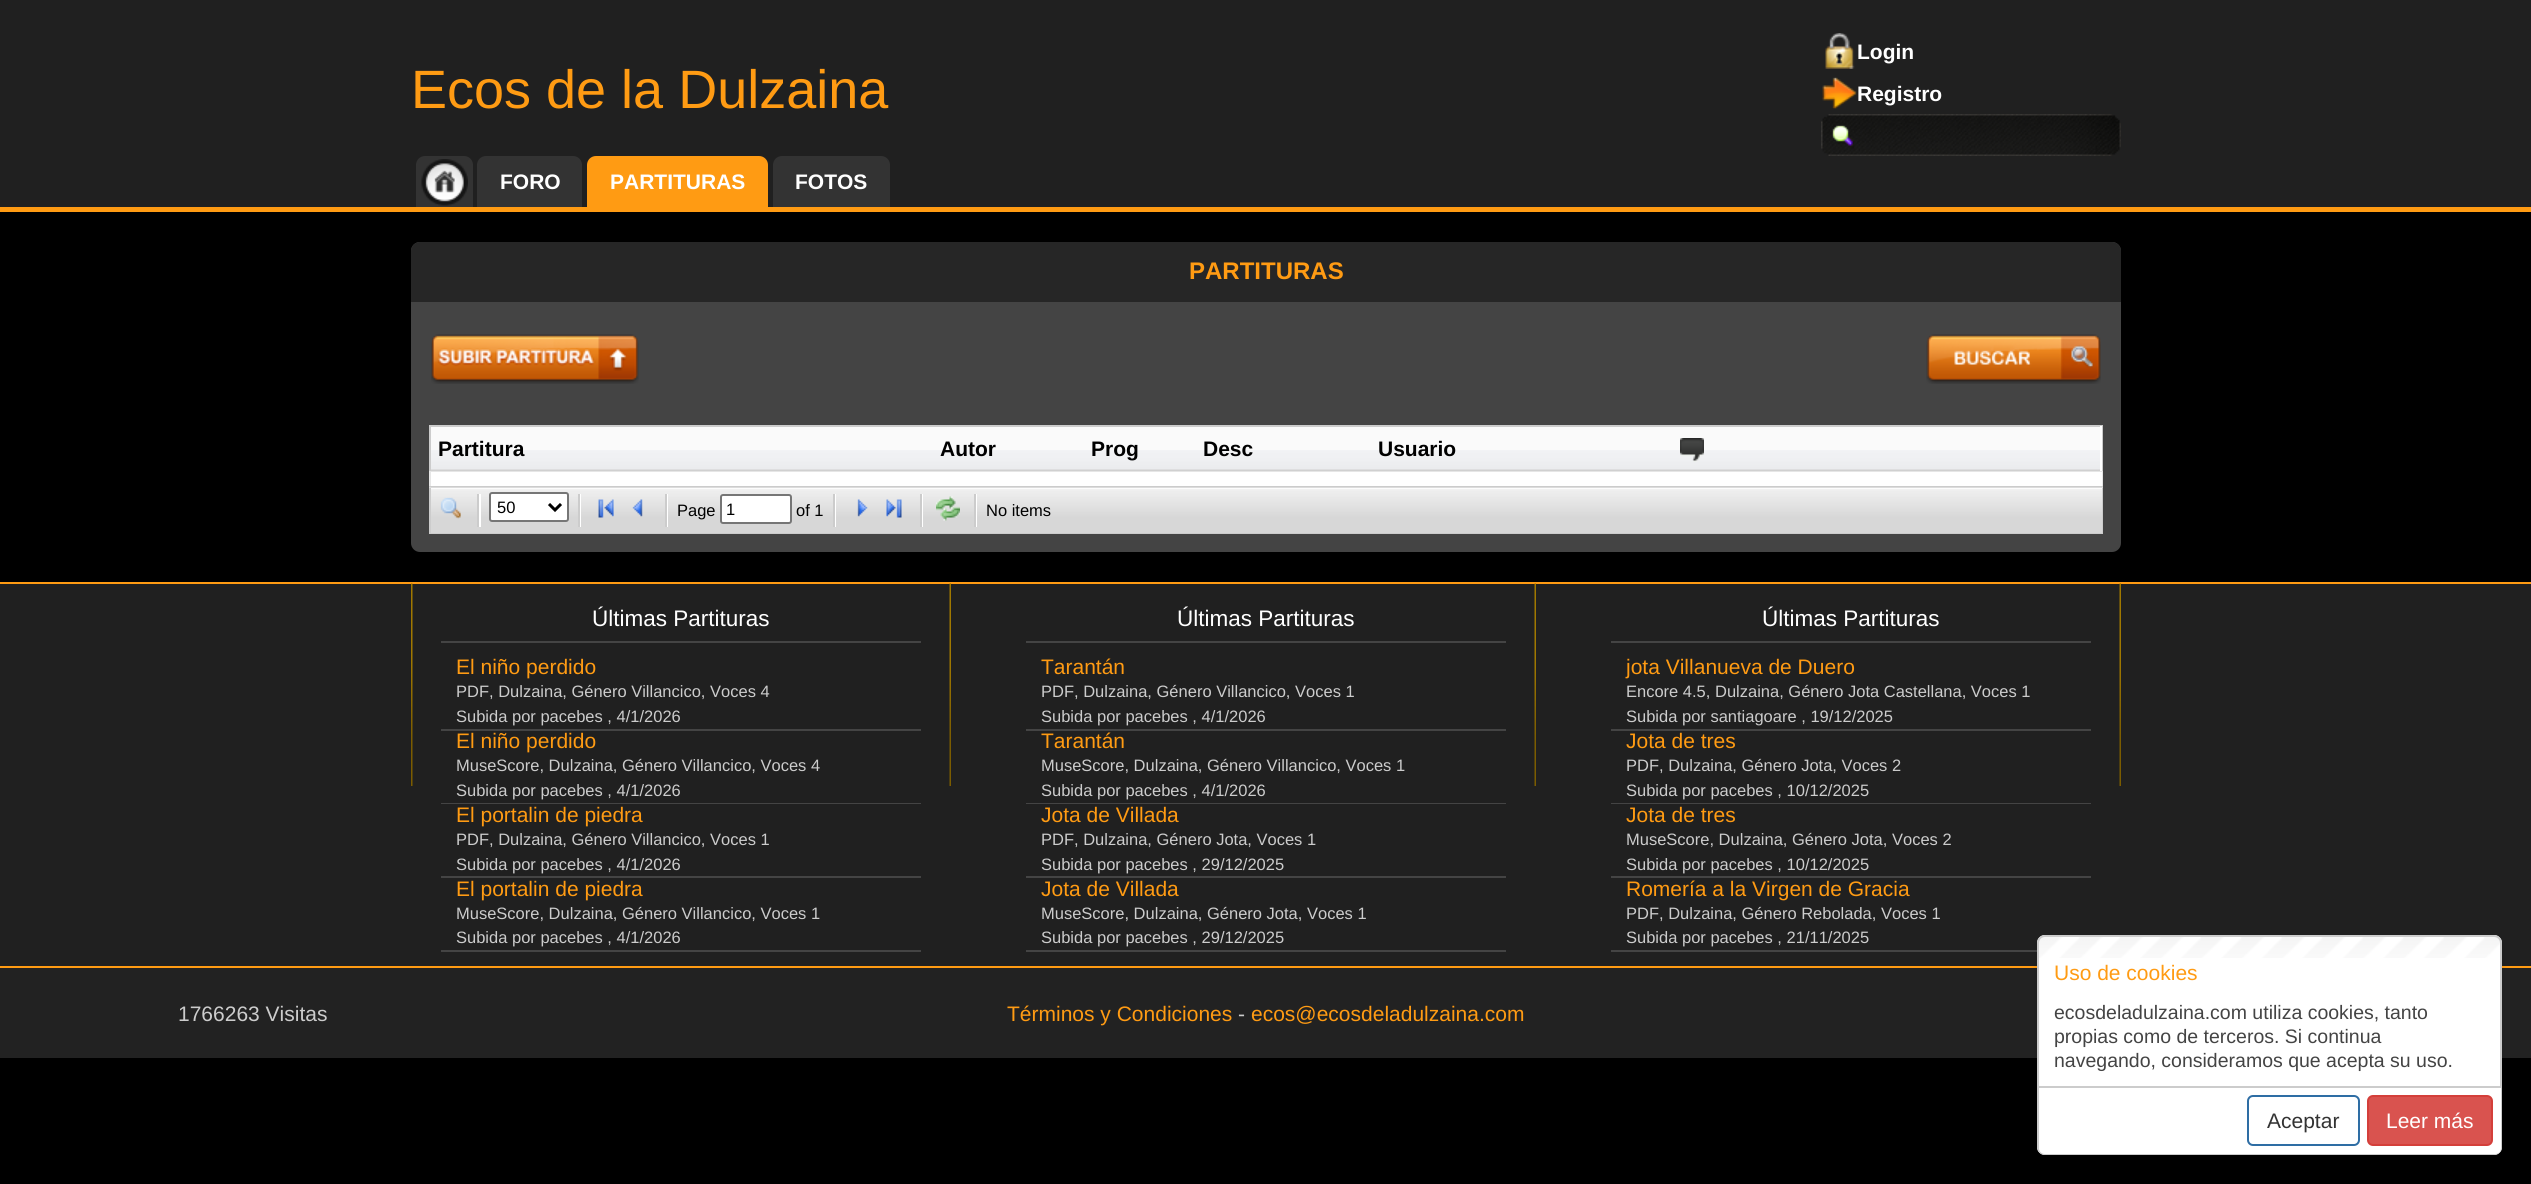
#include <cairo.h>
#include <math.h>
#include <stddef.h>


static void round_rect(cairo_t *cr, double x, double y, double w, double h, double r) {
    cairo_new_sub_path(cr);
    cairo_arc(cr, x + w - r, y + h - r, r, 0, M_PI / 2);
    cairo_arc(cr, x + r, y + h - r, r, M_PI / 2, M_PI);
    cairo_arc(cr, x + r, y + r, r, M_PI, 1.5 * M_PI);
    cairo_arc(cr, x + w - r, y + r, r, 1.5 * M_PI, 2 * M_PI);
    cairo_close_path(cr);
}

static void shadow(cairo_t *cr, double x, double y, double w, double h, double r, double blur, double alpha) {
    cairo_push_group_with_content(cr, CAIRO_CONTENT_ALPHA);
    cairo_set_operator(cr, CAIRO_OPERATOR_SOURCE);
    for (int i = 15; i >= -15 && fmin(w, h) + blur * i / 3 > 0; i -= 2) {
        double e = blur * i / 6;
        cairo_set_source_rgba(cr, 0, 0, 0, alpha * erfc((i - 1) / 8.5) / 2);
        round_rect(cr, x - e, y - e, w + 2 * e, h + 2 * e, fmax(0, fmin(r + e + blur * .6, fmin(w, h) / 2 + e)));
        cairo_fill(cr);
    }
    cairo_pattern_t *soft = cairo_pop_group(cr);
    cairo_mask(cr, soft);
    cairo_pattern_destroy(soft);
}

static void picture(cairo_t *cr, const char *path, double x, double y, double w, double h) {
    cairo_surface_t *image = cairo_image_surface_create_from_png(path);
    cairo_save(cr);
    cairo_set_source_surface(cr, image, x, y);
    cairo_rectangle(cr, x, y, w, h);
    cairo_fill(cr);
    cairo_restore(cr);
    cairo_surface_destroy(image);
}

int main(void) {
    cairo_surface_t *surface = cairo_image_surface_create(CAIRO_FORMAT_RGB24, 2531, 1184);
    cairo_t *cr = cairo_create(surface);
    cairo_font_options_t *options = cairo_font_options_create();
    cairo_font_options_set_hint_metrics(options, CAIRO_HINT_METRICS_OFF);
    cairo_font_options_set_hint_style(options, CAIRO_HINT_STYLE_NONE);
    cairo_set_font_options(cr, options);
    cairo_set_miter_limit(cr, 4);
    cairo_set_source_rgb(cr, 0, 0, 0);
    cairo_paint(cr);
    cairo_set_source_rgb(cr, 0.125, 0.125, 0.125);
    cairo_rectangle(cr, 0, 0, 2531, 207);
    cairo_fill(cr);
    cairo_set_source_rgb(cr, 1, 0.608, 0.078);
    cairo_rectangle(cr, 0, 207, 2531, 5);
    cairo_fill(cr);
    cairo_select_font_face(cr, "Liberation Sans", CAIRO_FONT_SLANT_NORMAL, CAIRO_FONT_WEIGHT_NORMAL);
    cairo_set_font_size(cr, 54);
    cairo_move_to(cr, 411, 108);
    cairo_show_text(cr, "Ecos de la Dulzaina");
    picture(cr, "img1.png", 1825, 33, 30, 36);
    cairo_select_font_face(cr, "Liberation Sans", CAIRO_FONT_SLANT_NORMAL, CAIRO_FONT_WEIGHT_BOLD);
    cairo_set_font_size(cr, 21);
    cairo_set_source_rgb(cr, 1, 1, 1);
    cairo_move_to(cr, 1857, 59);
    cairo_show_text(cr, "Login");
    picture(cr, "img2.png", 1822, 77, 35, 32);
    cairo_move_to(cr, 1857, 101);
    cairo_show_text(cr, "Registro");
    picture(cr, "img3.png", 1821, 114, 300, 42);
    cairo_set_source_rgb(cr, 0.2, 0.2, 0.2);
    cairo_new_path(cr);
    cairo_move_to(cr, 425, 156);
    cairo_line_to(cr, 464, 156);
    cairo_curve_to(cr, 469, 156, 473, 160, 473, 165);
    cairo_line_to(cr, 473, 207);
    cairo_line_to(cr, 416, 207);
    cairo_line_to(cr, 416, 165);
    cairo_curve_to(cr, 416, 160, 420, 156, 425, 156);
    cairo_close_path(cr);
    cairo_fill(cr);
    picture(cr, "img4.png", 421, 159, 47, 47);
    cairo_new_path(cr);
    cairo_move_to(cr, 486, 156);
    cairo_line_to(cr, 573, 156);
    cairo_curve_to(cr, 578, 156, 582, 160, 582, 165);
    cairo_line_to(cr, 582, 207);
    cairo_line_to(cr, 477, 207);
    cairo_line_to(cr, 477, 165);
    cairo_curve_to(cr, 477, 160, 481, 156, 486, 156);
    cairo_close_path(cr);
    cairo_fill(cr);
    cairo_set_source_rgb(cr, 1, 1, 1);
    cairo_move_to(cr, 500, 189);
    cairo_show_text(cr, "FORO");
    cairo_set_source_rgb(cr, 1, 0.608, 0.078);
    cairo_new_path(cr);
    cairo_move_to(cr, 596, 156);
    cairo_line_to(cr, 759, 156);
    cairo_curve_to(cr, 764, 156, 768, 160, 768, 165);
    cairo_line_to(cr, 768, 207);
    cairo_line_to(cr, 587, 207);
    cairo_line_to(cr, 587, 165);
    cairo_curve_to(cr, 587, 160, 591, 156, 596, 156);
    cairo_close_path(cr);
    cairo_fill(cr);
    cairo_set_source_rgb(cr, 1, 1, 1);
    cairo_move_to(cr, 610, 189);
    cairo_show_text(cr, "PARTITURAS");
    cairo_set_source_rgb(cr, 0.2, 0.2, 0.2);
    cairo_new_path(cr);
    cairo_move_to(cr, 782, 156);
    cairo_line_to(cr, 881, 156);
    cairo_curve_to(cr, 886, 156, 890, 160, 890, 165);
    cairo_line_to(cr, 890, 207);
    cairo_line_to(cr, 773, 207);
    cairo_line_to(cr, 773, 165);
    cairo_curve_to(cr, 773, 160, 777, 156, 782, 156);
    cairo_close_path(cr);
    cairo_fill(cr);
    cairo_set_source_rgb(cr, 1, 1, 1);
    cairo_move_to(cr, 795, 189);
    cairo_show_text(cr, "FOTOS");
    cairo_set_source_rgb(cr, 0.267, 0.267, 0.267);
    round_rect(cr, 411, 242, 1710, 310, 9);
    cairo_fill(cr);
    cairo_set_source_rgb(cr, 0.149, 0.149, 0.149);
    cairo_new_path(cr);
    cairo_move_to(cr, 420, 242);
    cairo_line_to(cr, 2112, 242);
    cairo_curve_to(cr, 2117, 242, 2121, 246, 2121, 251);
    cairo_line_to(cr, 2121, 302);
    cairo_line_to(cr, 411, 302);
    cairo_line_to(cr, 411, 251);
    cairo_curve_to(cr, 411, 246, 415, 242, 420, 242);
    cairo_close_path(cr);
    cairo_fill(cr);
    cairo_set_font_size(cr, 24);
    cairo_set_source_rgb(cr, 1, 0.608, 0.078);
    cairo_move_to(cr, 1189, 279);
    cairo_show_text(cr, "PARTITURAS");
    picture(cr, "img5.png", 431, 334, 208, 50);
    picture(cr, "img6.png", 1926, 334, 175, 50);
    cairo_set_source_rgb(cr, 0.98, 0.98, 0.98);
    cairo_rectangle(cr, 431, 427, 1669, 23);
    cairo_fill(cr);
    picture(cr, "img7.png", 431, 450, 1669, 21);
    cairo_set_source_rgb(cr, 0.8, 0.8, 0.8);
    cairo_rectangle(cr, 429, 425, 1674, 2);
    cairo_fill(cr);
    cairo_rectangle(cr, 2102, 425, 1, 46);
    cairo_fill(cr);
    cairo_rectangle(cr, 429, 425, 2, 46);
    cairo_fill(cr);
    cairo_set_source_rgb(cr, 1, 1, 1);
    cairo_rectangle(cr, 2100, 426, 2, 45);
    cairo_fill(cr);
    cairo_set_font_size(cr, 21);
    cairo_set_source_rgb(cr, 0, 0, 0);
    cairo_move_to(cr, 438, 456);
    cairo_show_text(cr, "Partitura");
    cairo_move_to(cr, 940, 456);
    cairo_show_text(cr, "Autor");
    cairo_move_to(cr, 1091, 456);
    cairo_show_text(cr, "Prog");
    cairo_move_to(cr, 1203, 456);
    cairo_show_text(cr, "Desc");
    cairo_move_to(cr, 1378, 456);
    cairo_show_text(cr, "Usuario");
    picture(cr, "img8.png", 1680, 438, 24, 24);
    cairo_set_source_rgb(cr, 1, 1, 1);
    cairo_rectangle(cr, 431, 472, 1671, 14);
    cairo_fill(cr);
    cairo_set_source_rgb(cr, 0.902, 0.902, 0.902);
    cairo_rectangle(cr, 2102, 471, 1, 15);
    cairo_fill(cr);
    cairo_set_source_rgb(cr, 0.8, 0.8, 0.8);
    cairo_rectangle(cr, 429, 486, 1674, 2);
    cairo_fill(cr);
    cairo_set_source_rgb(cr, 0.902, 0.902, 0.902);
    cairo_rectangle(cr, 429, 471, 2, 15);
    cairo_fill(cr);
    cairo_rectangle(cr, 431, 471, 1671, 1);
    cairo_fill(cr);
    picture(cr, "img9.png", 429, 487, 1674, 46);
    cairo_set_source_rgb(cr, 0.8, 0.8, 0.8);
    cairo_rectangle(cr, 2102, 488, 1, 46);
    cairo_fill(cr);
    cairo_rectangle(cr, 429, 533, 1674, 1);
    cairo_fill(cr);
    cairo_rectangle(cr, 429, 488, 2, 46);
    cairo_fill(cr);
    picture(cr, "img10.png", 440, 497, 21, 22);
    cairo_set_source_rgb(cr, 1, 1, 1);
    cairo_rectangle(cr, 479, 494, 2, 33);
    cairo_fill(cr);
    cairo_set_source_rgb(cr, 0.8, 0.8, 0.8);
    cairo_rectangle(cr, 477, 494, 2, 33);
    cairo_fill(cr);
    cairo_set_source_rgb(cr, 1, 1, 1);
    round_rect(cr, 490, 493, 78, 28, 2);
    cairo_fill_preserve(cr);
    cairo_set_source_rgb(cr, 0.463, 0.463, 0.463);
    cairo_stroke(cr);
    cairo_new_path(cr);
    cairo_move_to(cr, 549, 504);
    cairo_line_to(cr, 555, 510);
    cairo_line_to(cr, 561, 504);
    cairo_set_source_rgb(cr, 0, 0, 0);
    cairo_set_line_width(cr, 3);
    cairo_stroke(cr);
    cairo_select_font_face(cr, "Liberation Sans", CAIRO_FONT_SLANT_NORMAL, CAIRO_FONT_WEIGHT_NORMAL);
    cairo_set_font_size(cr, 16.5);
    cairo_move_to(cr, 497, 513);
    cairo_show_text(cr, "50");
    cairo_set_source_rgb(cr, 1, 1, 1);
    cairo_rectangle(cr, 580, 494, 1, 33);
    cairo_fill(cr);
    cairo_set_source_rgb(cr, 0.8, 0.8, 0.8);
    cairo_rectangle(cr, 578, 494, 2, 33);
    cairo_fill(cr);
    picture(cr, "img11.png", 598, 499, 16, 19);
    picture(cr, "img12.png", 632, 499, 11, 18);
    cairo_set_source_rgb(cr, 1, 1, 1);
    cairo_rectangle(cr, 667, 494, 1, 33);
    cairo_fill(cr);
    cairo_set_source_rgb(cr, 0.8, 0.8, 0.8);
    cairo_rectangle(cr, 665, 494, 2, 33);
    cairo_fill(cr);
    cairo_set_source_rgb(cr, 0, 0, 0);
    cairo_move_to(cr, 677, 516);
    cairo_show_text(cr, "Page");
    cairo_set_source_rgb(cr, 1, 1, 1);
    round_rect(cr, 721, 495, 70, 28, 2);
    cairo_fill_preserve(cr);
    cairo_set_source_rgb(cr, 0.463, 0.463, 0.463);
    cairo_set_line_width(cr, 2);
    cairo_stroke(cr);
    cairo_set_source_rgb(cr, 0, 0, 0);
    cairo_move_to(cr, 726, 515);
    cairo_show_text(cr, "1");
    cairo_move_to(cr, 796, 516);
    cairo_show_text(cr, "of 1");
    cairo_set_source_rgb(cr, 1, 1, 1);
    cairo_rectangle(cr, 835, 494, 1, 33);
    cairo_fill(cr);
    cairo_set_source_rgb(cr, 0.8, 0.8, 0.8);
    cairo_rectangle(cr, 833, 494, 2, 33);
    cairo_fill(cr);
    picture(cr, "img13.png", 857, 499, 11, 18);
    picture(cr, "img14.png", 886, 499, 16, 19);
    cairo_set_source_rgb(cr, 1, 1, 1);
    cairo_rectangle(cr, 922, 494, 1, 33);
    cairo_fill(cr);
    cairo_set_source_rgb(cr, 0.8, 0.8, 0.8);
    cairo_rectangle(cr, 920, 494, 2, 33);
    cairo_fill(cr);
    picture(cr, "img15.png", 936, 496, 24, 25);
    cairo_set_source_rgb(cr, 1, 1, 1);
    cairo_rectangle(cr, 976, 494, 1, 33);
    cairo_fill(cr);
    cairo_set_source_rgb(cr, 0.8, 0.8, 0.8);
    cairo_rectangle(cr, 974, 494, 2, 33);
    cairo_fill(cr);
    cairo_set_source_rgb(cr, 0, 0, 0);
    cairo_move_to(cr, 986, 516);
    cairo_show_text(cr, "No items");
    cairo_set_source_rgb(cr, 0.125, 0.125, 0.125);
    cairo_rectangle(cr, 0, 584, 2531, 382);
    cairo_fill(cr);
    cairo_set_source_rgb(cr, 1, 0.608, 0.078);
    cairo_rectangle(cr, 0, 582, 2531, 2);
    cairo_fill(cr);
    cairo_rectangle(cr, 0, 966, 2531, 2);
    cairo_fill(cr);
    picture(cr, "img16.png", 411, 583, 2, 203);
    picture(cr, "img17.png", 949, 583, 2, 203);
    cairo_set_source_rgb(cr, 0.267, 0.267, 0.267);
    cairo_rectangle(cr, 441, 641, 480, 2);
    cairo_fill(cr);
    cairo_set_font_size(cr, 22.5);
    cairo_set_source_rgb(cr, 1, 1, 1);
    cairo_move_to(cr, 592, 626);
    cairo_show_text(cr, "Últimas Partituras");
    cairo_set_source_rgb(cr, 0.267, 0.267, 0.267);
    cairo_rectangle(cr, 441, 729, 480, 2);
    cairo_fill(cr);
    cairo_set_font_size(cr, 21);
    cairo_set_source_rgb(cr, 1, 0.608, 0.078);
    cairo_move_to(cr, 456, 674);
    cairo_show_text(cr, "El niño perdido");
    cairo_set_font_size(cr, 16.5);
    cairo_set_source_rgb(cr, 0.8, 0.8, 0.8);
    cairo_move_to(cr, 456, 697);
    cairo_show_text(cr, "PDF, Dulzaina, Género Villancico, Voces 4");
    cairo_move_to(cr, 456, 722);
    cairo_show_text(cr, "Subida por pacebes , 4/1/2026");
    cairo_set_source_rgb(cr, 0.267, 0.267, 0.267);
    cairo_rectangle(cr, 441, 803, 480, 1);
    cairo_fill(cr);
    cairo_set_font_size(cr, 21);
    cairo_set_source_rgb(cr, 1, 0.608, 0.078);
    cairo_move_to(cr, 456, 748);
    cairo_show_text(cr, "El niño perdido");
    cairo_set_font_size(cr, 16.5);
    cairo_set_source_rgb(cr, 0.8, 0.8, 0.8);
    cairo_move_to(cr, 456, 771);
    cairo_show_text(cr, "MuseScore, Dulzaina, Género Villancico, Voces 4");
    cairo_move_to(cr, 456, 796);
    cairo_show_text(cr, "Subida por pacebes , 4/1/2026");
    cairo_set_source_rgb(cr, 0.267, 0.267, 0.267);
    cairo_rectangle(cr, 441, 876, 480, 2);
    cairo_fill(cr);
    cairo_set_font_size(cr, 21);
    cairo_set_source_rgb(cr, 1, 0.608, 0.078);
    cairo_move_to(cr, 456, 822);
    cairo_show_text(cr, "El portalin de piedra");
    cairo_set_font_size(cr, 16.5);
    cairo_set_source_rgb(cr, 0.8, 0.8, 0.8);
    cairo_move_to(cr, 456, 845);
    cairo_show_text(cr, "PDF, Dulzaina, Género Villancico, Voces 1");
    cairo_move_to(cr, 456, 870);
    cairo_show_text(cr, "Subida por pacebes , 4/1/2026");
    cairo_set_source_rgb(cr, 0.267, 0.267, 0.267);
    cairo_rectangle(cr, 441, 950, 480, 2);
    cairo_fill(cr);
    cairo_set_font_size(cr, 21);
    cairo_set_source_rgb(cr, 1, 0.608, 0.078);
    cairo_move_to(cr, 456, 896);
    cairo_show_text(cr, "El portalin de piedra");
    cairo_set_font_size(cr, 16.5);
    cairo_set_source_rgb(cr, 0.8, 0.8, 0.8);
    cairo_move_to(cr, 456, 919);
    cairo_show_text(cr, "MuseScore, Dulzaina, Género Villancico, Voces 1");
    cairo_move_to(cr, 456, 943);
    cairo_show_text(cr, "Subida por pacebes , 4/1/2026");
    picture(cr, "img17.png", 1534, 583, 2, 203);
    cairo_set_source_rgb(cr, 0.267, 0.267, 0.267);
    cairo_rectangle(cr, 1026, 641, 480, 2);
    cairo_fill(cr);
    cairo_set_font_size(cr, 22.5);
    cairo_set_source_rgb(cr, 1, 1, 1);
    cairo_move_to(cr, 1177, 626);
    cairo_show_text(cr, "Últimas Partituras");
    cairo_set_source_rgb(cr, 0.267, 0.267, 0.267);
    cairo_rectangle(cr, 1026, 729, 480, 2);
    cairo_fill(cr);
    cairo_set_font_size(cr, 21);
    cairo_set_source_rgb(cr, 1, 0.608, 0.078);
    cairo_move_to(cr, 1041, 674);
    cairo_show_text(cr, "Tarantán");
    cairo_set_font_size(cr, 16.5);
    cairo_set_source_rgb(cr, 0.8, 0.8, 0.8);
    cairo_move_to(cr, 1041, 697);
    cairo_show_text(cr, "PDF, Dulzaina, Género Villancico, Voces 1");
    cairo_move_to(cr, 1041, 722);
    cairo_show_text(cr, "Subida por pacebes , 4/1/2026");
    cairo_set_source_rgb(cr, 0.267, 0.267, 0.267);
    cairo_rectangle(cr, 1026, 803, 480, 1);
    cairo_fill(cr);
    cairo_set_font_size(cr, 21);
    cairo_set_source_rgb(cr, 1, 0.608, 0.078);
    cairo_move_to(cr, 1041, 748);
    cairo_show_text(cr, "Tarantán");
    cairo_set_font_size(cr, 16.5);
    cairo_set_source_rgb(cr, 0.8, 0.8, 0.8);
    cairo_move_to(cr, 1041, 771);
    cairo_show_text(cr, "MuseScore, Dulzaina, Género Villancico, Voces 1");
    cairo_move_to(cr, 1041, 796);
    cairo_show_text(cr, "Subida por pacebes , 4/1/2026");
    cairo_set_source_rgb(cr, 0.267, 0.267, 0.267);
    cairo_rectangle(cr, 1026, 876, 480, 2);
    cairo_fill(cr);
    cairo_set_font_size(cr, 21);
    cairo_set_source_rgb(cr, 1, 0.608, 0.078);
    cairo_move_to(cr, 1041, 822);
    cairo_show_text(cr, "Jota de Villada");
    cairo_set_font_size(cr, 16.5);
    cairo_set_source_rgb(cr, 0.8, 0.8, 0.8);
    cairo_move_to(cr, 1041, 845);
    cairo_show_text(cr, "PDF, Dulzaina, Género Jota, Voces 1");
    cairo_move_to(cr, 1041, 870);
    cairo_show_text(cr, "Subida por pacebes , 29/12/2025");
    cairo_set_source_rgb(cr, 0.267, 0.267, 0.267);
    cairo_rectangle(cr, 1026, 950, 480, 2);
    cairo_fill(cr);
    cairo_set_font_size(cr, 21);
    cairo_set_source_rgb(cr, 1, 0.608, 0.078);
    cairo_move_to(cr, 1041, 896);
    cairo_show_text(cr, "Jota de Villada");
    cairo_set_font_size(cr, 16.5);
    cairo_set_source_rgb(cr, 0.8, 0.8, 0.8);
    cairo_move_to(cr, 1041, 919);
    cairo_show_text(cr, "MuseScore, Dulzaina, Género Jota, Voces 1");
    cairo_move_to(cr, 1041, 943);
    cairo_show_text(cr, "Subida por pacebes , 29/12/2025");
    picture(cr, "img17.png", 2119, 583, 2, 203);
    cairo_set_source_rgb(cr, 0.267, 0.267, 0.267);
    cairo_rectangle(cr, 1611, 641, 480, 2);
    cairo_fill(cr);
    cairo_set_font_size(cr, 22.5);
    cairo_set_source_rgb(cr, 1, 1, 1);
    cairo_move_to(cr, 1762, 626);
    cairo_show_text(cr, "Últimas Partituras");
    cairo_set_source_rgb(cr, 0.267, 0.267, 0.267);
    cairo_rectangle(cr, 1611, 729, 480, 2);
    cairo_fill(cr);
    cairo_set_font_size(cr, 21);
    cairo_set_source_rgb(cr, 1, 0.608, 0.078);
    cairo_move_to(cr, 1626, 674);
    cairo_show_text(cr, "jota Villanueva de Duero");
    cairo_set_font_size(cr, 16.5);
    cairo_set_source_rgb(cr, 0.8, 0.8, 0.8);
    cairo_move_to(cr, 1626, 697);
    cairo_show_text(cr, "Encore 4.5, Dulzaina, Género Jota Castellana, Voces 1");
    cairo_move_to(cr, 1626, 722);
    cairo_show_text(cr, "Subida por santiagoare , 19/12/2025");
    cairo_set_source_rgb(cr, 0.267, 0.267, 0.267);
    cairo_rectangle(cr, 1611, 803, 480, 1);
    cairo_fill(cr);
    cairo_set_font_size(cr, 21);
    cairo_set_source_rgb(cr, 1, 0.608, 0.078);
    cairo_move_to(cr, 1626, 748);
    cairo_show_text(cr, "Jota de tres");
    cairo_set_font_size(cr, 16.5);
    cairo_set_source_rgb(cr, 0.8, 0.8, 0.8);
    cairo_move_to(cr, 1626, 771);
    cairo_show_text(cr, "PDF, Dulzaina, Género Jota, Voces 2");
    cairo_move_to(cr, 1626, 796);
    cairo_show_text(cr, "Subida por pacebes , 10/12/2025");
    cairo_set_source_rgb(cr, 0.267, 0.267, 0.267);
    cairo_rectangle(cr, 1611, 876, 480, 2);
    cairo_fill(cr);
    cairo_set_font_size(cr, 21);
    cairo_set_source_rgb(cr, 1, 0.608, 0.078);
    cairo_move_to(cr, 1626, 822);
    cairo_show_text(cr, "Jota de tres");
    cairo_set_font_size(cr, 16.5);
    cairo_set_source_rgb(cr, 0.8, 0.8, 0.8);
    cairo_move_to(cr, 1626, 845);
    cairo_show_text(cr, "MuseScore, Dulzaina, Género Jota, Voces 2");
    cairo_move_to(cr, 1626, 870);
    cairo_show_text(cr, "Subida por pacebes , 10/12/2025");
    cairo_set_source_rgb(cr, 0.267, 0.267, 0.267);
    cairo_rectangle(cr, 1611, 950, 426, 2);
    cairo_fill(cr);
    cairo_set_font_size(cr, 21);
    cairo_set_source_rgb(cr, 1, 0.608, 0.078);
    cairo_move_to(cr, 1626, 896);
    cairo_show_text(cr, "Romería a la Virgen de Gracia");
    cairo_set_font_size(cr, 16.5);
    cairo_set_source_rgb(cr, 0.8, 0.8, 0.8);
    cairo_move_to(cr, 1626, 919);
    cairo_show_text(cr, "PDF, Dulzaina, Género Rebolada, Voces 1");
    cairo_move_to(cr, 1626, 943);
    cairo_show_text(cr, "Subida por pacebes , 21/11/2025");
    cairo_set_source_rgb(cr, 0.133, 0.133, 0.133);
    cairo_rectangle(cr, 0, 968, 2531, 90);
    cairo_fill(cr);
    cairo_set_font_size(cr, 21);
    cairo_set_source_rgb(cr, 0.8, 0.8, 0.8);
    cairo_move_to(cr, 178, 1021);
    cairo_show_text(cr, "1766263 Visitas");
    cairo_set_source_rgb(cr, 1, 0.608, 0.078);
    cairo_move_to(cr, 1007, 1021);
    cairo_show_text(cr, "Términos y Condiciones");
    cairo_set_source_rgb(cr, 0.8, 0.8, 0.8);
    cairo_move_to(cr, 1238, 1021);
    cairo_show_text(cr, "-");
    cairo_set_source_rgb(cr, 1, 0.608, 0.078);
    cairo_move_to(cr, 1251, 1021);
    cairo_show_text(cr, "ecos@ecosdeladulzaina.com");
    cairo_set_source_rgb(cr, 0, 0, 0);
    shadow(cr, 2037, 938, 465, 220, 8, 3, 0.1);
    cairo_set_source_rgb(cr, 1, 1, 1);
    round_rect(cr, 2037, 935, 465, 220, 8);
    cairo_fill(cr);
    picture(cr, "img18.png", 2037, 936, 465, 22);
    round_rect(cr, 2038, 936, 463, 218, 7);
    cairo_set_source_rgb(cr, 0.8, 0.8, 0.8);
    cairo_stroke(cr);
    cairo_set_source_rgb(cr, 1, 0.608, 0.078);
    cairo_move_to(cr, 2054, 980);
    cairo_show_text(cr, "Uso de cookies");
    cairo_set_font_size(cr, 19.5);
    cairo_set_source_rgb(cr, 0.267, 0.267, 0.267);
    cairo_move_to(cr, 2054, 1019);
    cairo_show_text(cr, "ecosdeladulzaina.com utiliza cookies, tanto");
    cairo_move_to(cr, 2054, 1043);
    cairo_show_text(cr, "propias como de terceros. Si continua");
    cairo_move_to(cr, 2054, 1067);
    cairo_show_text(cr, "navegando, consideramos que acepta su uso.");
    cairo_set_source_rgb(cr, 1, 1, 1);
    cairo_new_path(cr);
    cairo_move_to(cr, 2039, 1086);
    cairo_line_to(cr, 2501, 1086);
    cairo_line_to(cr, 2501, 1148);
    cairo_curve_to(cr, 2501, 1151.5, 2498.5, 1154, 2495, 1154);
    cairo_line_to(cr, 2045, 1154);
    cairo_curve_to(cr, 2041.5, 1154, 2039, 1151.5, 2039, 1148);
    cairo_close_path(cr);
    cairo_fill(cr);
    cairo_set_source_rgb(cr, 0.8, 0.8, 0.8);
    cairo_rectangle(cr, 2039, 1086, 462, 2);
    cairo_fill(cr);
    round_rect(cr, 2248, 1096, 111, 49, 5);
    cairo_set_source_rgb(cr, 0.18, 0.427, 0.643);
    cairo_stroke(cr);
    cairo_set_font_size(cr, 21);
    cairo_set_source_rgb(cr, 0.2, 0.2, 0.2);
    cairo_move_to(cr, 2267, 1128);
    cairo_show_text(cr, "Aceptar");
    cairo_set_source_rgb(cr, 0.851, 0.325, 0.31);
    round_rect(cr, 2368, 1096, 124, 49, 5);
    cairo_fill_preserve(cr);
    cairo_set_source_rgb(cr, 0.831, 0.247, 0.227);
    cairo_stroke(cr);
    cairo_set_source_rgb(cr, 1, 1, 1);
    cairo_move_to(cr, 2386, 1128);
    cairo_show_text(cr, "Leer más");
    cairo_surface_write_to_png(surface, "page.png");
    cairo_font_options_destroy(options);
    cairo_destroy(cr);
    cairo_surface_destroy(surface);
    return 0;
}
